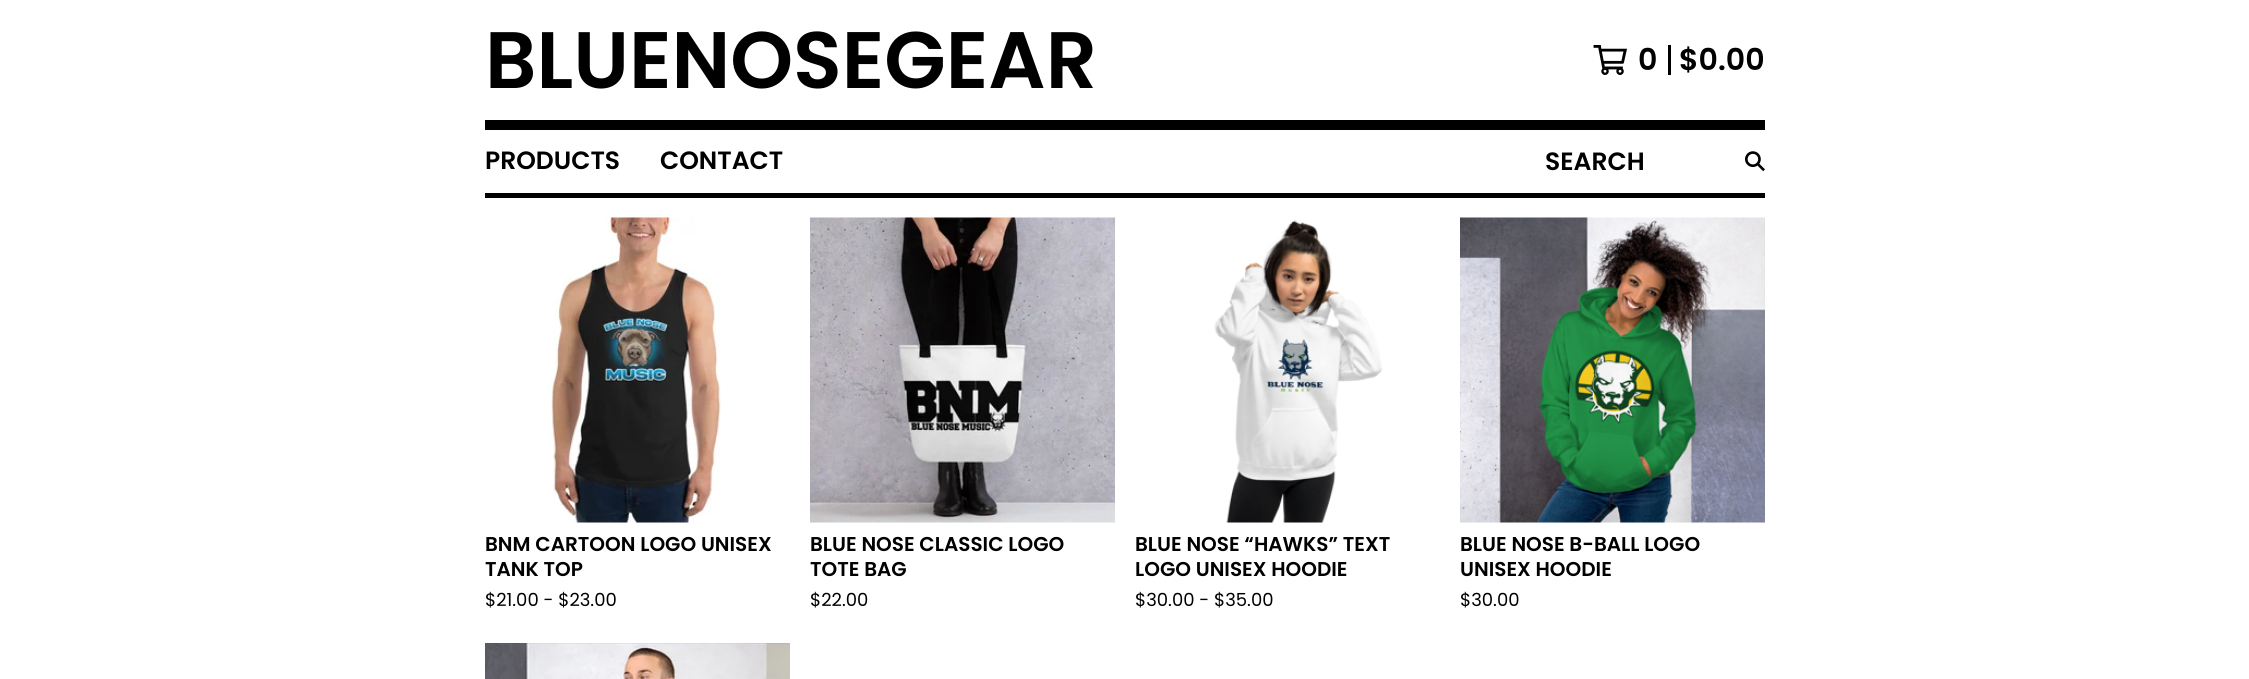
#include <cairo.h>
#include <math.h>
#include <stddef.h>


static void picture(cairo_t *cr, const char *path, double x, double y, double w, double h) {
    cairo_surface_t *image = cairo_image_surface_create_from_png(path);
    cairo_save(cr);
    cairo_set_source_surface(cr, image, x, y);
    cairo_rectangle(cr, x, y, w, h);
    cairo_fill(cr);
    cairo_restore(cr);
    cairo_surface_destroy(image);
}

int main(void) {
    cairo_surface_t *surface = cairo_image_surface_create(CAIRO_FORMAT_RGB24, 2249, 679);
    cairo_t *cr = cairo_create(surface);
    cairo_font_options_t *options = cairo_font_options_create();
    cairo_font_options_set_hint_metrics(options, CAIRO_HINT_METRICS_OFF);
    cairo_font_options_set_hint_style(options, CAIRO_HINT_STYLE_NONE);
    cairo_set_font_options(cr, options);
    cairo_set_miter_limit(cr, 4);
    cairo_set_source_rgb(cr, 1, 1, 1);
    cairo_paint(cr);
    cairo_set_source_rgb(cr, 0, 0, 0);
    cairo_rectangle(cr, 485, 120, 1280, 10);
    cairo_fill(cr);
    cairo_select_font_face(cr, "Poppins SemiBold", CAIRO_FONT_SLANT_NORMAL, CAIRO_FONT_WEIGHT_NORMAL);
    cairo_set_font_size(cr, 80);
    cairo_move_to(cr, 485, 88);
    cairo_show_text(cr, "BLUENOSEGEAR");
    picture(cr, "img1.png", 1593, 45, 34, 30);
    cairo_rectangle(cr, 1668, 45, 3, 30);
    cairo_fill(cr);
    cairo_set_font_size(cr, 30);
    cairo_move_to(cr, 1638, 70);
    cairo_show_text(cr, "0");
    cairo_move_to(cr, 1679, 70);
    cairo_show_text(cr, "$0.00");
    cairo_rectangle(cr, 485, 193, 1280, 5);
    cairo_fill(cr);
    cairo_set_font_size(cr, 25);
    cairo_move_to(cr, 485, 169);
    cairo_show_text(cr, "PRODUCTS");
    cairo_move_to(cr, 660, 169);
    cairo_show_text(cr, "CONTACT");
    cairo_move_to(cr, 1545, 170);
    cairo_show_text(cr, "SEARCH");
    picture(cr, "img2.png", 1745, 151, 20, 20);
    picture(cr, "img3.png", 551, 217, 170, 306);
    cairo_set_font_size(cr, 20);
    cairo_move_to(cr, 485, 551);
    cairo_show_text(cr, "BNM CARTOON LOGO UNISEX");
    cairo_move_to(cr, 485, 576);
    cairo_show_text(cr, "TANK TOP");
    cairo_select_font_face(cr, "Poppins", CAIRO_FONT_SLANT_NORMAL, CAIRO_FONT_WEIGHT_NORMAL);
    cairo_set_font_size(cr, 18);
    cairo_move_to(cr, 485, 606);
    cairo_show_text(cr, "$21.00 - $23.00");
    picture(cr, "img4.png", 810, 217, 305, 306);
    cairo_select_font_face(cr, "Poppins SemiBold", CAIRO_FONT_SLANT_NORMAL, CAIRO_FONT_WEIGHT_NORMAL);
    cairo_set_font_size(cr, 20);
    cairo_move_to(cr, 810, 551);
    cairo_show_text(cr, "BLUE NOSE CLASSIC LOGO");
    cairo_move_to(cr, 810, 576);
    cairo_show_text(cr, "TOTE BAG");
    cairo_select_font_face(cr, "Poppins", CAIRO_FONT_SLANT_NORMAL, CAIRO_FONT_WEIGHT_NORMAL);
    cairo_set_font_size(cr, 18);
    cairo_move_to(cr, 810, 606);
    cairo_show_text(cr, "$22.00");
    picture(cr, "img5.png", 1214, 220, 169, 303);
    cairo_select_font_face(cr, "Poppins SemiBold", CAIRO_FONT_SLANT_NORMAL, CAIRO_FONT_WEIGHT_NORMAL);
    cairo_set_font_size(cr, 20);
    cairo_move_to(cr, 1135, 551);
    cairo_show_text(cr, "BLUE NOSE “HAWKS” TEXT");
    cairo_move_to(cr, 1135, 576);
    cairo_show_text(cr, "LOGO UNISEX HOODIE");
    cairo_select_font_face(cr, "Poppins", CAIRO_FONT_SLANT_NORMAL, CAIRO_FONT_WEIGHT_NORMAL);
    cairo_set_font_size(cr, 18);
    cairo_move_to(cr, 1135, 606);
    cairo_show_text(cr, "$30.00 - $35.00");
    picture(cr, "img6.png", 1460, 217, 305, 306);
    cairo_select_font_face(cr, "Poppins SemiBold", CAIRO_FONT_SLANT_NORMAL, CAIRO_FONT_WEIGHT_NORMAL);
    cairo_set_font_size(cr, 20);
    cairo_move_to(cr, 1460, 551);
    cairo_show_text(cr, "BLUE NOSE B-BALL LOGO");
    cairo_move_to(cr, 1460, 576);
    cairo_show_text(cr, "UNISEX HOODIE");
    cairo_select_font_face(cr, "Poppins", CAIRO_FONT_SLANT_NORMAL, CAIRO_FONT_WEIGHT_NORMAL);
    cairo_set_font_size(cr, 18);
    cairo_move_to(cr, 1460, 606);
    cairo_show_text(cr, "$30.00");
    picture(cr, "img7.png", 485, 643, 305, 36);
    cairo_surface_write_to_png(surface, "page.png");
    cairo_font_options_destroy(options);
    cairo_destroy(cr);
    cairo_surface_destroy(surface);
    return 0;
}
